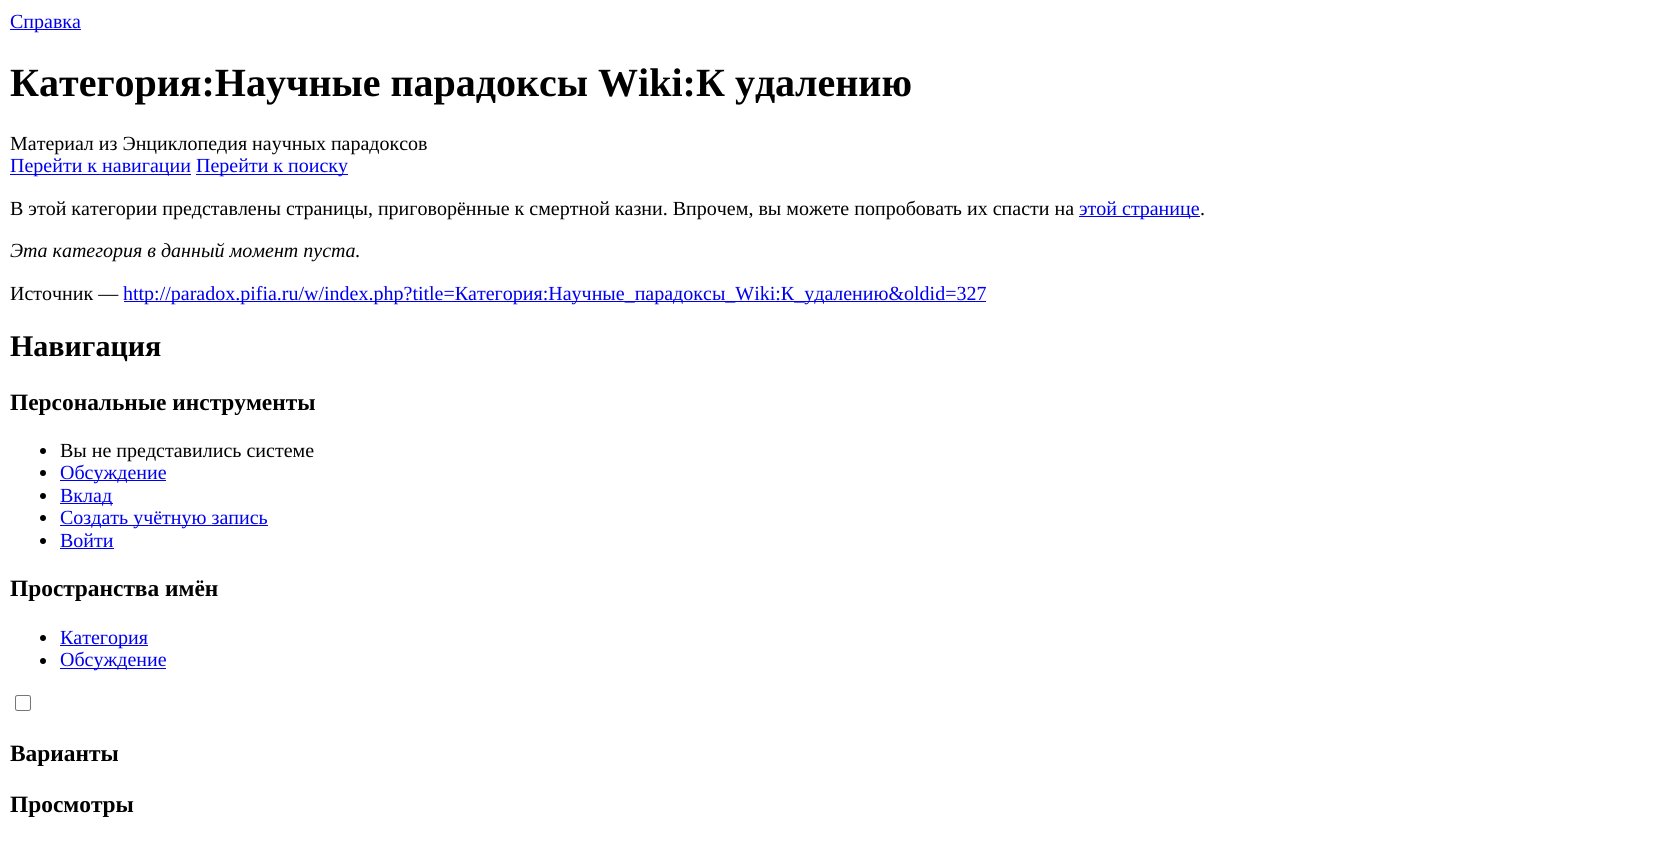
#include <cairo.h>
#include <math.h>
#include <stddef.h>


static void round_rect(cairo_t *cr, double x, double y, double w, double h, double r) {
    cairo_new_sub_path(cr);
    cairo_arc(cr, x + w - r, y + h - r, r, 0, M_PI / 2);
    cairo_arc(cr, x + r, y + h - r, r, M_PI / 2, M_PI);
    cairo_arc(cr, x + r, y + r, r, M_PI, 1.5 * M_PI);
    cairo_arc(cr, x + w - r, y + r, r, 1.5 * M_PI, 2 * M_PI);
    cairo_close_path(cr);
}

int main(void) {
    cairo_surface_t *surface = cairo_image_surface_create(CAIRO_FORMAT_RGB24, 1666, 844);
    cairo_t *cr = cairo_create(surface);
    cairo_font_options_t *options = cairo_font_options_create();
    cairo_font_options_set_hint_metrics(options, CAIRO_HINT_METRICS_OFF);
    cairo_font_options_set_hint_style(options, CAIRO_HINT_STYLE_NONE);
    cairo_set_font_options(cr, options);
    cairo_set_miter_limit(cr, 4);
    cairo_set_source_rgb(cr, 1, 1, 1);
    cairo_paint(cr);
    cairo_set_source_rgb(cr, 0, 0, 0.933);
    cairo_rectangle(cr, 10, 29, 71, 1);
    cairo_fill(cr);
    cairo_select_font_face(cr, "Liberation Serif", CAIRO_FONT_SLANT_NORMAL, CAIRO_FONT_WEIGHT_NORMAL);
    cairo_set_font_size(cr, 20);
    cairo_move_to(cr, 10, 28);
    cairo_show_text(cr, "Справка");
    cairo_select_font_face(cr, "Liberation Serif", CAIRO_FONT_SLANT_NORMAL, CAIRO_FONT_WEIGHT_BOLD);
    cairo_set_font_size(cr, 40);
    cairo_set_source_rgb(cr, 0, 0, 0);
    cairo_move_to(cr, 10, 96);
    cairo_show_text(cr, "Категория:Научные парадоксы Wiki:К удалению");
    cairo_select_font_face(cr, "Liberation Serif", CAIRO_FONT_SLANT_NORMAL, CAIRO_FONT_WEIGHT_NORMAL);
    cairo_set_font_size(cr, 20);
    cairo_move_to(cr, 10, 150);
    cairo_show_text(cr, "Материал из Энциклопедия научных парадоксов");
    cairo_set_source_rgb(cr, 0, 0, 0.933);
    cairo_rectangle(cr, 10, 174, 181, 1);
    cairo_fill(cr);
    cairo_move_to(cr, 10, 172);
    cairo_show_text(cr, "Перейти к навигации");
    cairo_rectangle(cr, 196, 174, 152, 1);
    cairo_fill(cr);
    cairo_move_to(cr, 196, 172);
    cairo_show_text(cr, "Перейти к поиску");
    cairo_set_source_rgb(cr, 0, 0, 0);
    cairo_move_to(cr, 10, 215);
    cairo_show_text(cr, "В этой категории представлены страницы, приговорённые к смертной казни. Впрочем, вы можете попробовать их спасти на");
    cairo_set_source_rgb(cr, 0, 0, 0.933);
    cairo_rectangle(cr, 1079, 216, 121, 1);
    cairo_fill(cr);
    cairo_move_to(cr, 1079, 215);
    cairo_show_text(cr, "этой странице");
    cairo_set_source_rgb(cr, 0, 0, 0);
    cairo_move_to(cr, 1200, 215);
    cairo_show_text(cr, ".");
    cairo_select_font_face(cr, "Liberation Serif", CAIRO_FONT_SLANT_ITALIC, CAIRO_FONT_WEIGHT_NORMAL);
    cairo_move_to(cr, 10, 257);
    cairo_show_text(cr, "Эта категория в данный момент пуста.");
    cairo_select_font_face(cr, "Liberation Serif", CAIRO_FONT_SLANT_NORMAL, CAIRO_FONT_WEIGHT_NORMAL);
    cairo_move_to(cr, 10, 300);
    cairo_show_text(cr, "Источник —");
    cairo_set_source_rgb(cr, 0, 0, 0.933);
    cairo_rectangle(cr, 124, 301, 862, 1);
    cairo_fill(cr);
    cairo_move_to(cr, 123, 300);
    cairo_show_text(cr, "http://paradox.pifia.ru/w/index.php?title=Категория:Научные_парадоксы_Wiki:К_удалению&oldid=327");
    cairo_select_font_face(cr, "Liberation Serif", CAIRO_FONT_SLANT_NORMAL, CAIRO_FONT_WEIGHT_BOLD);
    cairo_set_font_size(cr, 30);
    cairo_set_source_rgb(cr, 0, 0, 0);
    cairo_move_to(cr, 10, 356);
    cairo_show_text(cr, "Навигация");
    cairo_set_font_size(cr, 23.4);
    cairo_move_to(cr, 10, 410);
    cairo_show_text(cr, "Персональные инструменты");
    cairo_new_path(cr);
    cairo_arc(cr, 43, 451, 3, 0, 2 * M_PI);
    cairo_fill(cr);
    cairo_select_font_face(cr, "Liberation Serif", CAIRO_FONT_SLANT_NORMAL, CAIRO_FONT_WEIGHT_NORMAL);
    cairo_set_font_size(cr, 20);
    cairo_move_to(cr, 60, 457);
    cairo_show_text(cr, "Вы не представились системе");
    cairo_new_path(cr);
    cairo_arc(cr, 43, 473, 3, 0, 2 * M_PI);
    cairo_fill(cr);
    cairo_set_source_rgb(cr, 0, 0, 0.933);
    cairo_rectangle(cr, 60, 480, 106, 1);
    cairo_fill(cr);
    cairo_move_to(cr, 60, 479);
    cairo_show_text(cr, "Обсуждение");
    cairo_set_source_rgb(cr, 0, 0, 0);
    cairo_new_path(cr);
    cairo_arc(cr, 43, 496, 3, 0, 2 * M_PI);
    cairo_fill(cr);
    cairo_set_source_rgb(cr, 0, 0, 0.933);
    cairo_rectangle(cr, 60, 503, 53, 1);
    cairo_fill(cr);
    cairo_move_to(cr, 60, 502);
    cairo_show_text(cr, "Вклад");
    cairo_set_source_rgb(cr, 0, 0, 0);
    cairo_new_path(cr);
    cairo_arc(cr, 43, 518, 3, 0, 2 * M_PI);
    cairo_fill(cr);
    cairo_set_source_rgb(cr, 0, 0, 0.933);
    cairo_rectangle(cr, 60, 525, 208, 1);
    cairo_fill(cr);
    cairo_move_to(cr, 60, 524);
    cairo_show_text(cr, "Создать учётную запись");
    cairo_set_source_rgb(cr, 0, 0, 0);
    cairo_new_path(cr);
    cairo_arc(cr, 43, 541, 3, 0, 2 * M_PI);
    cairo_fill(cr);
    cairo_set_source_rgb(cr, 0, 0, 0.933);
    cairo_move_to(cr, 60, 547);
    cairo_show_text(cr, "Войти");
    cairo_rectangle(cr, 60, 548, 54, 1);
    cairo_fill(cr);
    cairo_select_font_face(cr, "Liberation Serif", CAIRO_FONT_SLANT_NORMAL, CAIRO_FONT_WEIGHT_BOLD);
    cairo_set_font_size(cr, 23.4);
    cairo_set_source_rgb(cr, 0, 0, 0);
    cairo_move_to(cr, 10, 596);
    cairo_show_text(cr, "Пространства имён");
    cairo_new_path(cr);
    cairo_arc(cr, 43, 638, 3, 0, 2 * M_PI);
    cairo_fill(cr);
    cairo_set_source_rgb(cr, 0, 0, 0.933);
    cairo_rectangle(cr, 60, 645, 88, 1);
    cairo_fill(cr);
    cairo_select_font_face(cr, "Liberation Serif", CAIRO_FONT_SLANT_NORMAL, CAIRO_FONT_WEIGHT_NORMAL);
    cairo_set_font_size(cr, 20);
    cairo_move_to(cr, 60, 644);
    cairo_show_text(cr, "Категория");
    cairo_set_source_rgb(cr, 0, 0, 0);
    cairo_new_path(cr);
    cairo_arc(cr, 43, 661, 3, 0, 2 * M_PI);
    cairo_fill(cr);
    cairo_set_source_rgb(cr, 0, 0, 0.933);
    cairo_rectangle(cr, 60, 668, 106, 1);
    cairo_fill(cr);
    cairo_move_to(cr, 60, 666);
    cairo_show_text(cr, "Обсуждение");
    round_rect(cr, 15.5, 695.5, 15, 15, 2);
    cairo_set_source_rgb(cr, 0.463, 0.463, 0.463);
    cairo_set_line_width(cr, 1);
    cairo_stroke(cr);
    cairo_select_font_face(cr, "Liberation Serif", CAIRO_FONT_SLANT_NORMAL, CAIRO_FONT_WEIGHT_BOLD);
    cairo_set_font_size(cr, 23.4);
    cairo_set_source_rgb(cr, 0, 0, 0);
    cairo_move_to(cr, 10, 761);
    cairo_show_text(cr, "Варианты");
    cairo_move_to(cr, 10, 812);
    cairo_show_text(cr, "Просмотры");
    cairo_surface_write_to_png(surface, "page.png");
    cairo_font_options_destroy(options);
    cairo_destroy(cr);
    cairo_surface_destroy(surface);
    return 0;
}
